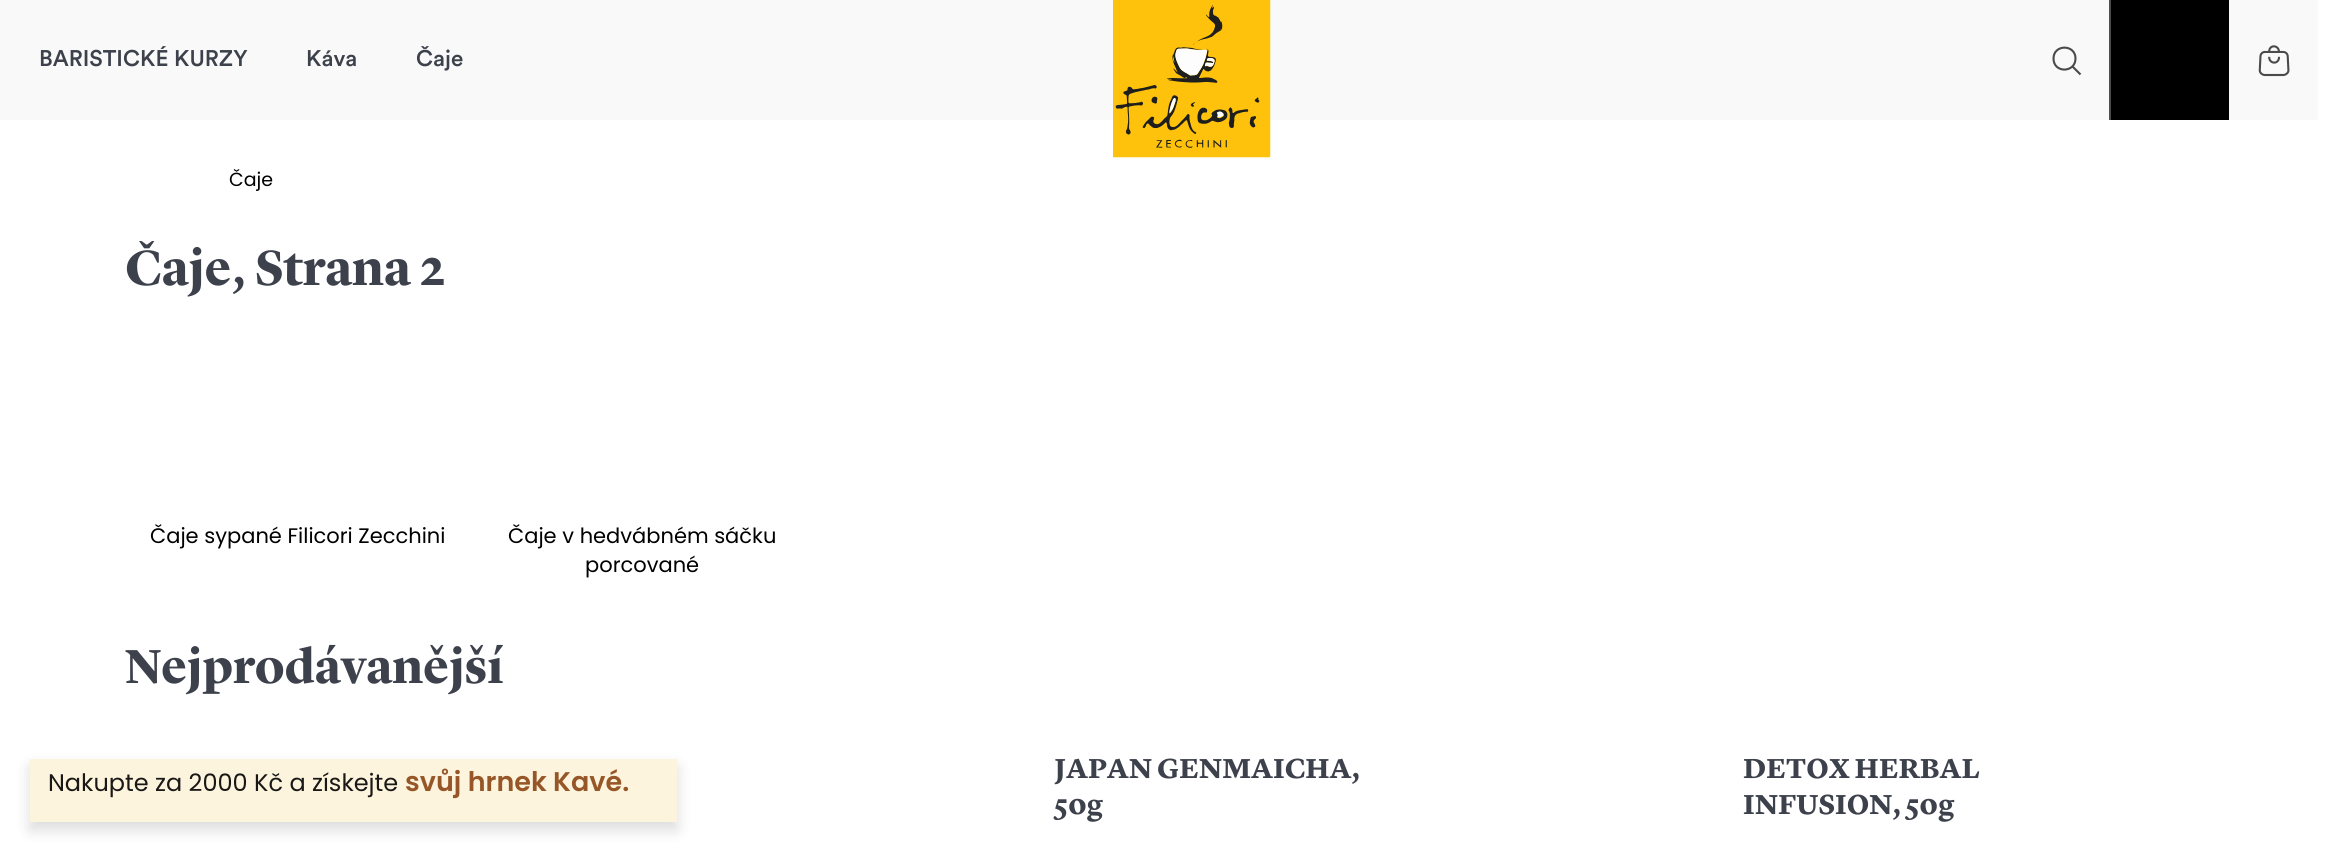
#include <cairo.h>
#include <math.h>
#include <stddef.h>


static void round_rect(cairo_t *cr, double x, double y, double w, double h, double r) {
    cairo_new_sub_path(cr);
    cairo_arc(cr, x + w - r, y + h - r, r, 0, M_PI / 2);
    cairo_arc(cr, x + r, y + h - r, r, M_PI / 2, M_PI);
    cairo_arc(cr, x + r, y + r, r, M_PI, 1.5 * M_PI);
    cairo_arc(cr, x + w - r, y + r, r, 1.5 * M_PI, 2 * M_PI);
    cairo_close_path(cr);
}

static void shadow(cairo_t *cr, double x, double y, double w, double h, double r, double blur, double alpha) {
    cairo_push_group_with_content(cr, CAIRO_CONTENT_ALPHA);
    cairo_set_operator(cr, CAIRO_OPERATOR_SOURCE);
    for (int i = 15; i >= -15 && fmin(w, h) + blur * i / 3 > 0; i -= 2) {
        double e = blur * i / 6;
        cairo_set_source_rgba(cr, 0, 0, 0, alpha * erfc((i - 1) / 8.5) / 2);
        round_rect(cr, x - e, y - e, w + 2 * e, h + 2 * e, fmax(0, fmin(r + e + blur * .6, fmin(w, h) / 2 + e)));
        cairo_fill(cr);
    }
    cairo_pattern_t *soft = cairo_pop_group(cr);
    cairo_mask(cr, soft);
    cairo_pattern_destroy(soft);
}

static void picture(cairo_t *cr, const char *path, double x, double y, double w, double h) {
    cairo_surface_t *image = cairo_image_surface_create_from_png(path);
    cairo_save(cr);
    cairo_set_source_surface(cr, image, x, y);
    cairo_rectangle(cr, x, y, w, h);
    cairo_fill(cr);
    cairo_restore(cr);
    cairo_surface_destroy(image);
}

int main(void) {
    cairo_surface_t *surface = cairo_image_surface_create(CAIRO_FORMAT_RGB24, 2339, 851);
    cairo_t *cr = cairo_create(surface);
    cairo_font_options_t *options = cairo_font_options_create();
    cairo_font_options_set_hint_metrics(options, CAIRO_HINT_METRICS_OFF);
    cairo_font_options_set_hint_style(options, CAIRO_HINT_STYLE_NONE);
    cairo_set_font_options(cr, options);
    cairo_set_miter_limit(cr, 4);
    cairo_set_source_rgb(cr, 1, 1, 1);
    cairo_paint(cr);
    cairo_set_source_rgb(cr, 0.973, 0.973, 0.973);
    cairo_rectangle(cr, 0, 0, 2316, 120);
    cairo_fill(cr);
    cairo_select_font_face(cr, "Circular Medium", CAIRO_FONT_SLANT_NORMAL, CAIRO_FONT_WEIGHT_NORMAL);
    cairo_set_font_size(cr, 22.5);
    cairo_set_source_rgb(cr, 0.239, 0.255, 0.298);
    cairo_move_to(cr, 39, 66);
    cairo_show_text(cr, "BARISTICKÉ KURZY");
    cairo_move_to(cr, 306, 66);
    cairo_show_text(cr, "Káva");
    cairo_move_to(cr, 416, 66);
    cairo_show_text(cr, "Čaje");
    picture(cr, "img1.png", 1113, 0, 158, 158);
    cairo_set_source_rgb(cr, 0.98, 0.98, 0.98);
    cairo_rectangle(cr, 2316, 0, 2, 120);
    cairo_fill(cr);
    cairo_new_path(cr);
    cairo_move_to(cr, 2075.5, 58.5);
    cairo_curve_to(cr, 2075.5, 44, 2053.5, 44, 2053.5, 58.5);
    cairo_curve_to(cr, 2053.5, 73.5, 2075.5, 73, 2075.5, 58.5);
    cairo_close_path(cr);
    cairo_move_to(cr, 2080.5, 74.5);
    cairo_line_to(cr, 2072.5, 66.5);
    cairo_set_source_rgb(cr, 0.29, 0.29, 0.29);
    cairo_set_line_width(cr, 2.1);
    cairo_stroke(cr);
    cairo_set_source_rgb(cr, 0, 0, 0);
    cairo_rectangle(cr, 2111, 0, 118, 120);
    cairo_fill(cr);
    cairo_set_source_rgb(cr, 0.302, 0.302, 0.302);
    cairo_rectangle(cr, 2109, 0, 2, 120);
    cairo_fill(cr);
    picture(cr, "img2.png", 2258, 45, 32, 32);
    cairo_select_font_face(cr, "Poppins", CAIRO_FONT_SLANT_NORMAL, CAIRO_FONT_WEIGHT_NORMAL);
    cairo_set_font_size(cr, 19);
    cairo_set_source_rgb(cr, 0, 0, 0);
    cairo_move_to(cr, 229, 186);
    cairo_show_text(cr, "Čaje");
    cairo_select_font_face(cr, "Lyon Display", CAIRO_FONT_SLANT_NORMAL, CAIRO_FONT_WEIGHT_BOLD);
    cairo_set_font_size(cr, 51);
    cairo_set_source_rgb(cr, 0.239, 0.255, 0.298);
    cairo_move_to(cr, 125, 285);
    cairo_show_text(cr, "Čaje, Strana 2");
    cairo_select_font_face(cr, "Poppins", CAIRO_FONT_SLANT_NORMAL, CAIRO_FONT_WEIGHT_NORMAL);
    cairo_set_font_size(cr, 21);
    cairo_set_source_rgb(cr, 0, 0, 0);
    cairo_move_to(cr, 150, 543);
    cairo_show_text(cr, "Čaje sypané Filicori Zecchini");
    cairo_move_to(cr, 508, 543);
    cairo_show_text(cr, "Čaje v hedvábném sáčku");
    cairo_move_to(cr, 585, 572);
    cairo_show_text(cr, "porcované");
    cairo_select_font_face(cr, "Lyon Display", CAIRO_FONT_SLANT_NORMAL, CAIRO_FONT_WEIGHT_BOLD);
    cairo_set_font_size(cr, 49.5);
    cairo_set_source_rgb(cr, 0.239, 0.255, 0.298);
    cairo_move_to(cr, 125, 683);
    cairo_show_text(cr, "Nejprodávanější");
    cairo_select_font_face(cr, "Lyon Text", CAIRO_FONT_SLANT_NORMAL, CAIRO_FONT_WEIGHT_BOLD);
    cairo_set_font_size(cr, 28.5);
    cairo_move_to(cr, 1054, 778);
    cairo_show_text(cr, "JAPAN GENMAICHA,");
    cairo_move_to(cr, 1054, 814);
    cairo_show_text(cr, "50g");
    cairo_move_to(cr, 1743, 778);
    cairo_show_text(cr, "DETOX HERBAL");
    cairo_move_to(cr, 1743, 814);
    cairo_show_text(cr, "INFUSION, 50g");
    cairo_save(cr);
    cairo_set_fill_rule(cr, CAIRO_FILL_RULE_EVEN_ODD);
    cairo_new_path(cr);
    cairo_move_to(cr, 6, 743);
    cairo_line_to(cr, 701, 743);
    cairo_line_to(cr, 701, 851);
    cairo_line_to(cr, 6, 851);
    cairo_close_path(cr);
    cairo_move_to(cr, 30, 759);
    cairo_line_to(cr, 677, 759);
    cairo_line_to(cr, 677, 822);
    cairo_line_to(cr, 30, 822);
    cairo_close_path(cr);
    cairo_clip(cr);
    cairo_set_source_rgb(cr, 0, 0, 0);
    shadow(cr, 30, 767, 647, 63, 0, 7.5, 0.14);
    cairo_restore(cr);
    cairo_set_source_rgba(cr, 0.992, 0.953, 0.855, 0.9);
    cairo_rectangle(cr, 30, 759, 647, 63);
    cairo_fill(cr);
    cairo_select_font_face(cr, "Poppins", CAIRO_FONT_SLANT_NORMAL, CAIRO_FONT_WEIGHT_NORMAL);
    cairo_set_font_size(cr, 24);
    cairo_set_source_rgb(cr, 0.098, 0.094, 0.086);
    cairo_move_to(cr, 48, 791);
    cairo_show_text(cr, "Nakupte za 2000 Kč a získejte");
    cairo_select_font_face(cr, "Poppins SemiBold", CAIRO_FONT_SLANT_NORMAL, CAIRO_FONT_WEIGHT_NORMAL);
    cairo_set_font_size(cr, 27);
    cairo_set_source_rgb(cr, 0.588, 0.337, 0.153);
    cairo_move_to(cr, 405, 791);
    cairo_show_text(cr, "svůj hrnek Kavé.");
    cairo_surface_write_to_png(surface, "page.png");
    cairo_font_options_destroy(options);
    cairo_destroy(cr);
    cairo_surface_destroy(surface);
    return 0;
}
